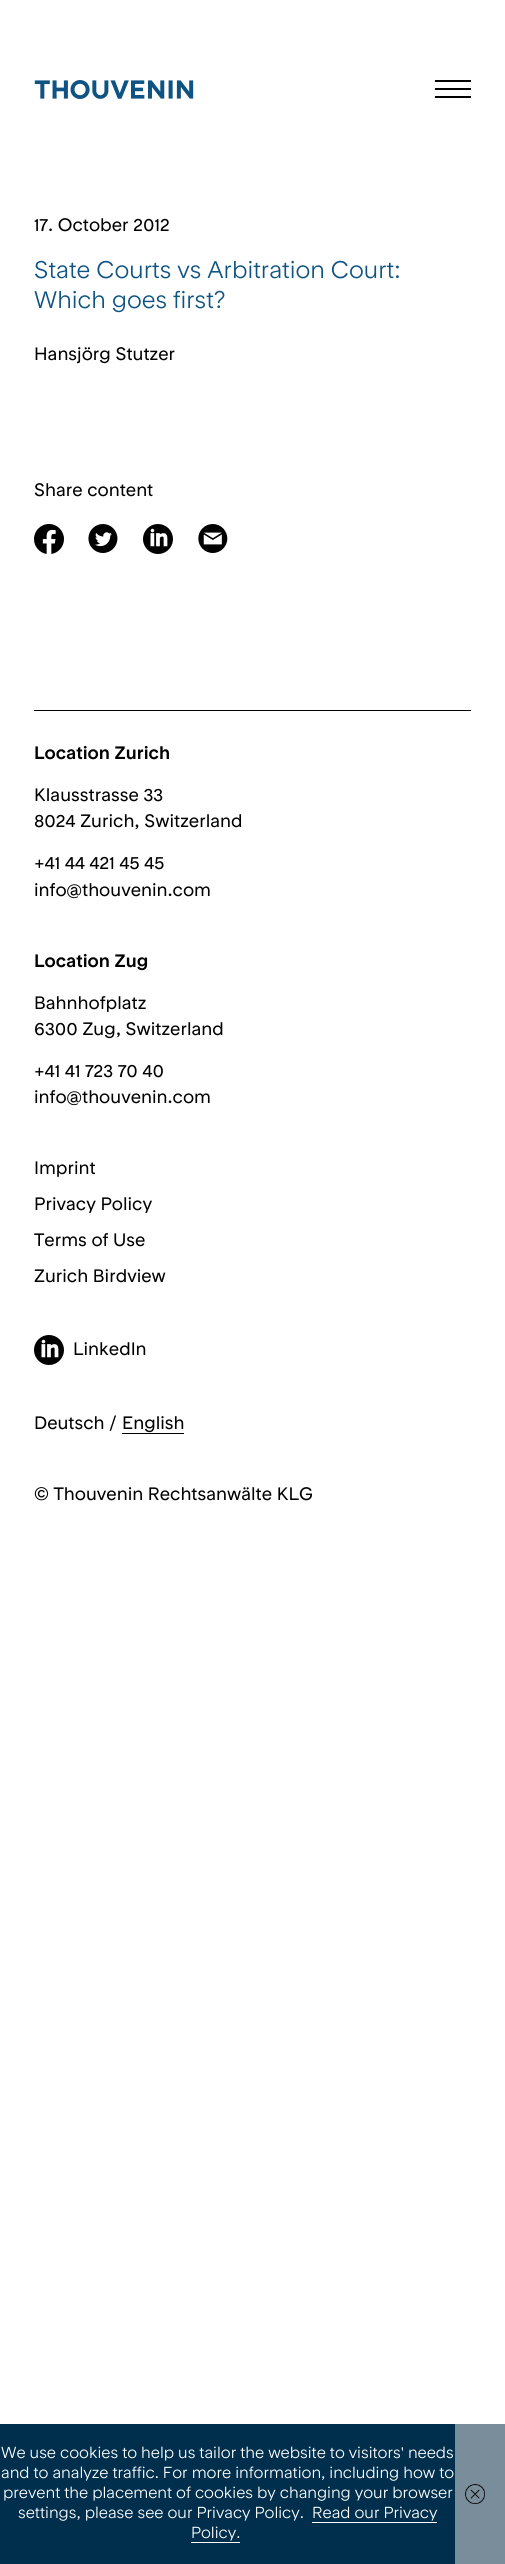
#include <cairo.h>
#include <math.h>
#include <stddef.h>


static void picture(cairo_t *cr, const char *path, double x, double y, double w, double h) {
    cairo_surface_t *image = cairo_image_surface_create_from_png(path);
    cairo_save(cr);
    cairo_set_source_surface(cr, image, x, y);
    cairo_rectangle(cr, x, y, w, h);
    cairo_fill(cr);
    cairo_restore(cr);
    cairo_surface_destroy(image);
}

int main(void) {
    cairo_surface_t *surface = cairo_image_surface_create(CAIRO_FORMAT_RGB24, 505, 2564);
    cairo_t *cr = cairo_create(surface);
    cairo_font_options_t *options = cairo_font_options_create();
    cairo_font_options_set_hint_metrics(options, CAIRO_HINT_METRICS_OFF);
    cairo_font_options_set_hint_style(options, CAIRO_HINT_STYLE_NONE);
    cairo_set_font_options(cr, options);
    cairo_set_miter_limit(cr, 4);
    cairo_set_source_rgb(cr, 1, 1, 1);
    cairo_paint(cr);
    picture(cr, "img1.png", 34, 80, 160, 19);
    cairo_set_source_rgb(cr, 0, 0, 0);
    cairo_rectangle(cr, 435, 80, 36, 2);
    cairo_fill(cr);
    cairo_rectangle(cr, 435, 88, 36, 2);
    cairo_fill(cr);
    cairo_rectangle(cr, 435, 96, 36, 2);
    cairo_fill(cr);
    cairo_select_font_face(cr, "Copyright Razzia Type", CAIRO_FONT_SLANT_NORMAL, CAIRO_FONT_WEIGHT_NORMAL);
    cairo_set_font_size(cr, 18);
    cairo_move_to(cr, 34, 231);
    cairo_show_text(cr, "17. October 2012");
    cairo_select_font_face(cr, "Copyright Razzia Type Light", CAIRO_FONT_SLANT_NORMAL, CAIRO_FONT_WEIGHT_NORMAL);
    cairo_set_font_size(cr, 24);
    cairo_set_source_rgb(cr, 0.055, 0.325, 0.51);
    cairo_move_to(cr, 34, 278);
    cairo_show_text(cr, "State Courts vs Arbitration Court:");
    cairo_move_to(cr, 34, 308);
    cairo_show_text(cr, "Which goes first?");
    cairo_select_font_face(cr, "Copyright Razzia Type", CAIRO_FONT_SLANT_NORMAL, CAIRO_FONT_WEIGHT_NORMAL);
    cairo_set_font_size(cr, 18);
    cairo_set_source_rgb(cr, 0, 0, 0);
    cairo_move_to(cr, 34, 360);
    cairo_show_text(cr, "Hansjörg Stutzer");
    cairo_move_to(cr, 34, 496);
    cairo_show_text(cr, "Share content");
    picture(cr, "img2.png", 34, 524, 30, 30);
    picture(cr, "img3.png", 88, 524, 30, 29);
    picture(cr, "img4.png", 143, 524, 30, 30);
    picture(cr, "img5.png", 198, 524, 30, 29);
    cairo_rectangle(cr, 34, 710, 437, 1);
    cairo_fill(cr);
    cairo_select_font_face(cr, "Copyright Razzia Type SemiBold", CAIRO_FONT_SLANT_NORMAL, CAIRO_FONT_WEIGHT_NORMAL);
    cairo_move_to(cr, 34, 759);
    cairo_show_text(cr, "Location Zurich");
    cairo_select_font_face(cr, "Copyright Razzia Type", CAIRO_FONT_SLANT_NORMAL, CAIRO_FONT_WEIGHT_NORMAL);
    cairo_move_to(cr, 34, 801);
    cairo_show_text(cr, "Klausstrasse 33");
    cairo_move_to(cr, 34, 827);
    cairo_show_text(cr, "8024 Zurich, Switzerland");
    cairo_move_to(cr, 34, 869);
    cairo_show_text(cr, "+41 44 421 45 45");
    cairo_move_to(cr, 34, 896);
    cairo_show_text(cr, "info@thouvenin.com");
    cairo_select_font_face(cr, "Copyright Razzia Type SemiBold", CAIRO_FONT_SLANT_NORMAL, CAIRO_FONT_WEIGHT_NORMAL);
    cairo_move_to(cr, 34, 967);
    cairo_show_text(cr, "Location Zug");
    cairo_select_font_face(cr, "Copyright Razzia Type", CAIRO_FONT_SLANT_NORMAL, CAIRO_FONT_WEIGHT_NORMAL);
    cairo_move_to(cr, 34, 1009);
    cairo_show_text(cr, "Bahnhofplatz");
    cairo_move_to(cr, 34, 1035);
    cairo_show_text(cr, "6300 Zug, Switzerland");
    cairo_move_to(cr, 34, 1077);
    cairo_show_text(cr, "+41 41 723 70 40");
    cairo_move_to(cr, 34, 1103);
    cairo_show_text(cr, "info@thouvenin.com");
    cairo_move_to(cr, 34, 1174);
    cairo_show_text(cr, "Imprint");
    cairo_move_to(cr, 34, 1210);
    cairo_show_text(cr, "Privacy Policy");
    cairo_move_to(cr, 34, 1246);
    cairo_show_text(cr, "Terms of Use");
    cairo_move_to(cr, 34, 1282);
    cairo_show_text(cr, "Zurich Birdview");
    picture(cr, "img4.png", 34, 1335, 30, 30);
    cairo_move_to(cr, 73, 1355);
    cairo_show_text(cr, "LinkedIn");
    cairo_move_to(cr, 34, 1429);
    cairo_show_text(cr, "Deutsch");
    cairo_move_to(cr, 109, 1429);
    cairo_show_text(cr, "/");
    cairo_move_to(cr, 122, 1429);
    cairo_show_text(cr, "English");
    cairo_rectangle(cr, 122, 1433, 62, 1);
    cairo_fill(cr);
    cairo_move_to(cr, 34, 1500);
    cairo_show_text(cr, "© Thouvenin Rechtsanwälte KLG");
    cairo_set_source_rgb(cr, 0, 0.184, 0.306);
    cairo_rectangle(cr, 0, 2424, 455, 140);
    cairo_fill(cr);
    cairo_select_font_face(cr, "Copyright Razzia Type Light", CAIRO_FONT_SLANT_NORMAL, CAIRO_FONT_WEIGHT_NORMAL);
    cairo_set_font_size(cr, 16);
    cairo_set_source_rgb(cr, 1, 1, 1);
    cairo_move_to(cr, 1, 2458);
    cairo_show_text(cr, "We use cookies to help us tailor the website to visitors' needs");
    cairo_move_to(cr, 1, 2478);
    cairo_show_text(cr, "and to analyze traffic. For more information, including how to");
    cairo_move_to(cr, 3, 2498);
    cairo_show_text(cr, "prevent the placement of cookies by changing your browser");
    cairo_move_to(cr, 18, 2518);
    cairo_show_text(cr, "settings, please see our Privacy Policy.");
    cairo_move_to(cr, 312, 2518);
    cairo_show_text(cr, "Read our Privacy");
    cairo_rectangle(cr, 312, 2522, 125, 1);
    cairo_fill(cr);
    cairo_move_to(cr, 191, 2538);
    cairo_show_text(cr, "Policy.");
    cairo_rectangle(cr, 191, 2542, 49, 1);
    cairo_fill(cr);
    cairo_set_source_rgb(cr, 0.478, 0.553, 0.604);
    cairo_rectangle(cr, 455, 2424, 50, 140);
    cairo_fill(cr);
    picture(cr, "img6.png", 465, 2484, 20, 20);
    cairo_surface_write_to_png(surface, "page.png");
    cairo_font_options_destroy(options);
    cairo_destroy(cr);
    cairo_surface_destroy(surface);
    return 0;
}
